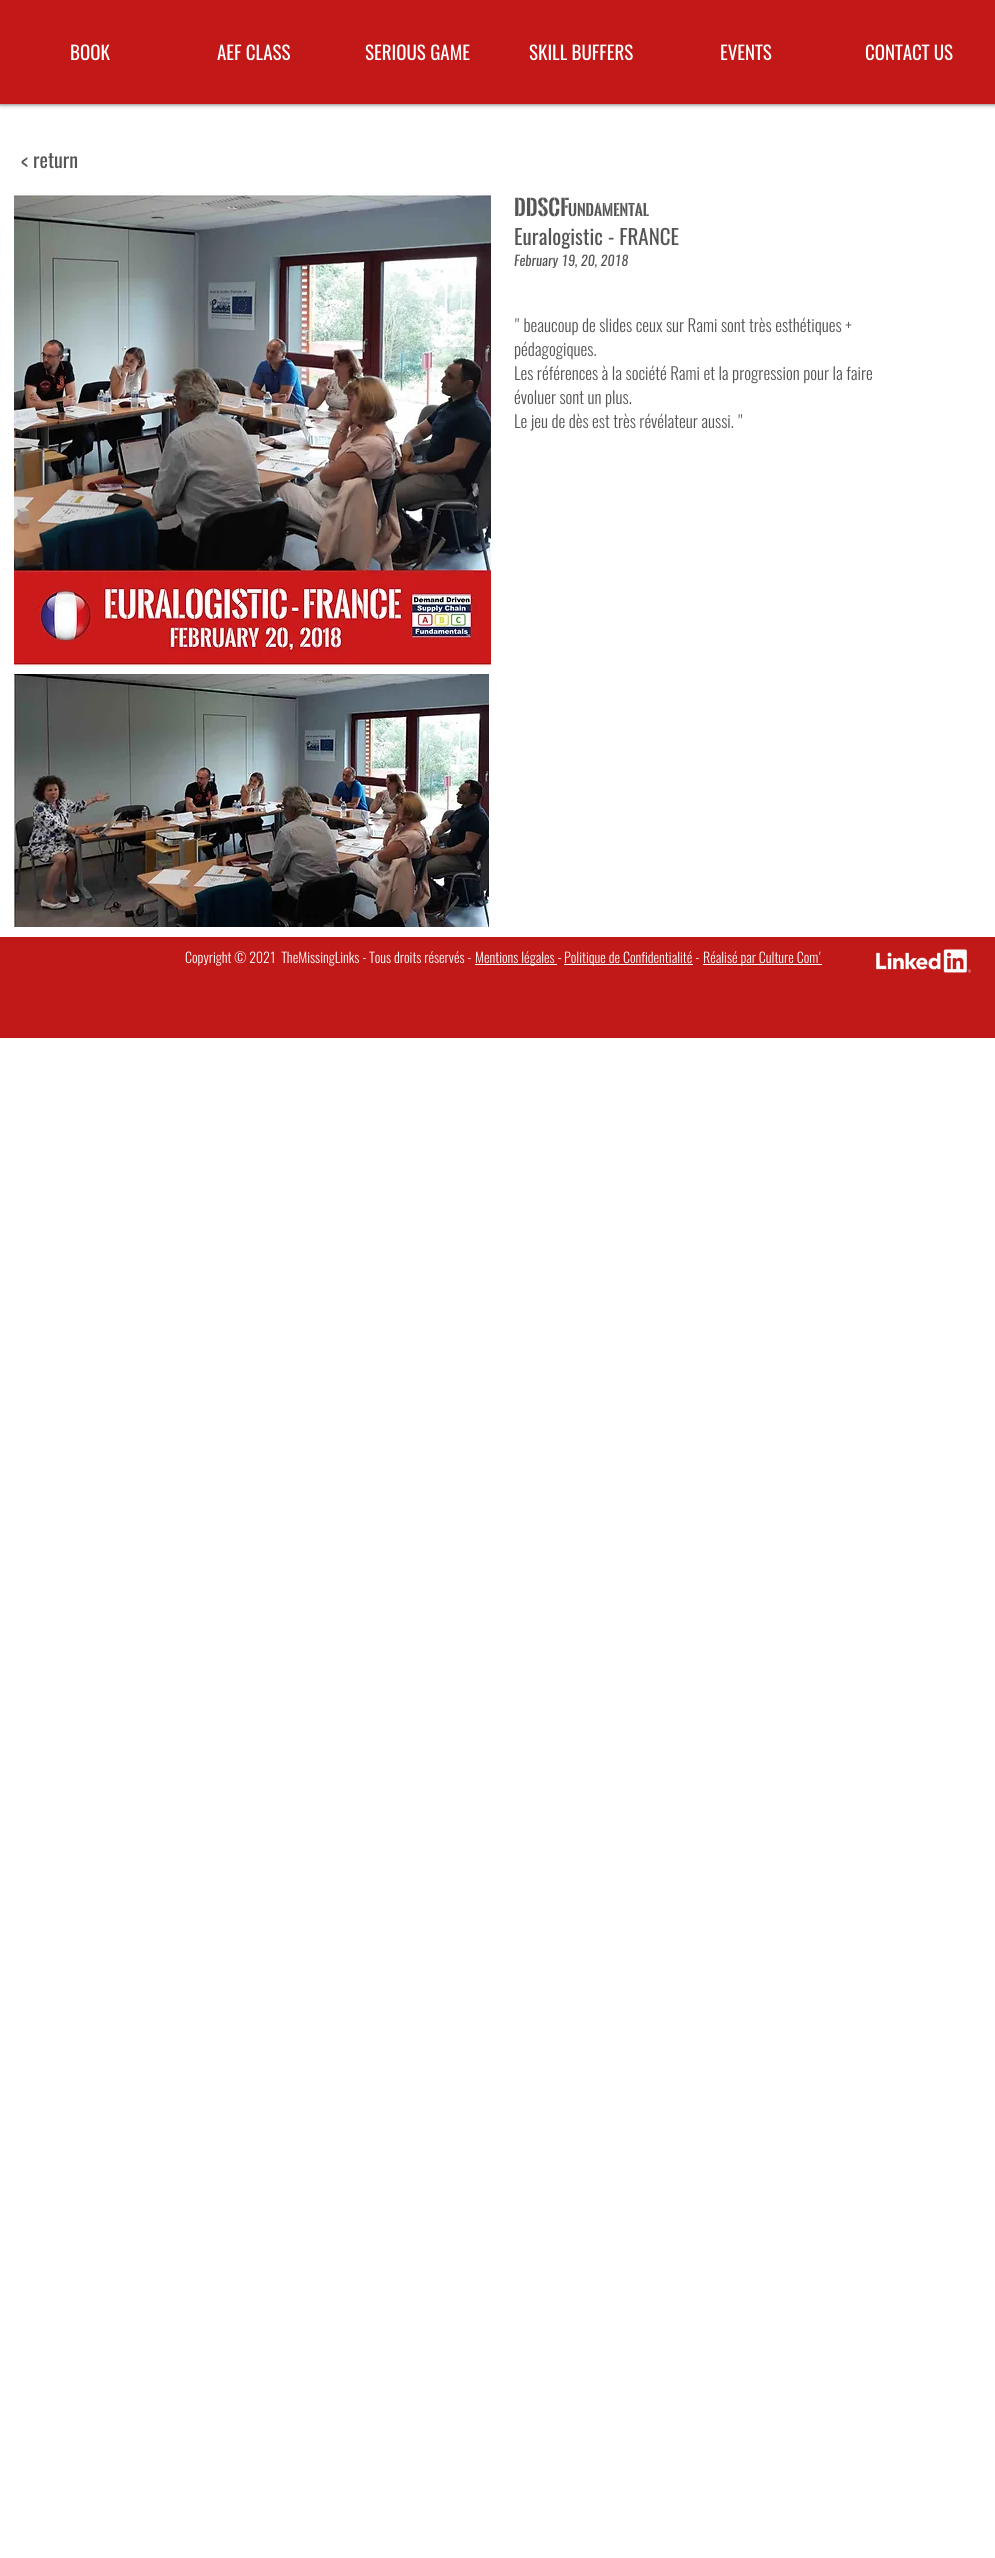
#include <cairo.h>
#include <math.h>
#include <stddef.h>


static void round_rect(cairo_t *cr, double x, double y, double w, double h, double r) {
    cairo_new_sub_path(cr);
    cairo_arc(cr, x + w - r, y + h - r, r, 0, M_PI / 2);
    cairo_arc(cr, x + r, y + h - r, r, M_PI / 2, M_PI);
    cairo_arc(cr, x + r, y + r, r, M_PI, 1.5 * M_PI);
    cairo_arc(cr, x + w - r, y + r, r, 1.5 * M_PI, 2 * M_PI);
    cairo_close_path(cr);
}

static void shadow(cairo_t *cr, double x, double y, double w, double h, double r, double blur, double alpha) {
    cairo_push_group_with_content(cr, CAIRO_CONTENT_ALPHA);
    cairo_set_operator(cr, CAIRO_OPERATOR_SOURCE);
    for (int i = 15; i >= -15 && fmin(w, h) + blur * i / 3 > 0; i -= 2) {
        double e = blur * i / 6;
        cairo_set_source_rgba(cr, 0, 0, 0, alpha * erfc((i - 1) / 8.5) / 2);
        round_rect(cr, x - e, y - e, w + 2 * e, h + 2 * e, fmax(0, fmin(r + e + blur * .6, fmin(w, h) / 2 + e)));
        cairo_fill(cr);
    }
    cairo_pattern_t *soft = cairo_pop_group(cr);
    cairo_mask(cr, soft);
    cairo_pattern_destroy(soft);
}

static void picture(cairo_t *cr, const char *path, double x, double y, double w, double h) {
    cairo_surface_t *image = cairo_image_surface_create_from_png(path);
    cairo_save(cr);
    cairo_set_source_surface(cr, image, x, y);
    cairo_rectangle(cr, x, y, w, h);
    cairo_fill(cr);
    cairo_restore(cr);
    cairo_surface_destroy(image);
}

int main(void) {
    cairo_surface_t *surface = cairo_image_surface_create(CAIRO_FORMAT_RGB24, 995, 2558);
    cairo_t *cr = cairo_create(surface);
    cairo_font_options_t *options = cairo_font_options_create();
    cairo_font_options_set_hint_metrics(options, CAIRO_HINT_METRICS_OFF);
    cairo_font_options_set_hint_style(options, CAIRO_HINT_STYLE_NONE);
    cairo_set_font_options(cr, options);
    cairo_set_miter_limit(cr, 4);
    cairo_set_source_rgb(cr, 1, 1, 1);
    cairo_paint(cr);
    cairo_set_source_rgb(cr, 0, 0, 0);
    shadow(cr, 0, 0, 995, 104, 0, 2.5, 0.7);
    cairo_set_source_rgb(cr, 0.765, 0.094, 0.094);
    cairo_rectangle(cr, 0, 0, 995, 104);
    cairo_fill(cr);
    cairo_select_font_face(cr, "Oswald", CAIRO_FONT_SLANT_NORMAL, CAIRO_FONT_WEIGHT_NORMAL);
    cairo_set_font_size(cr, 19);
    cairo_set_source_rgb(cr, 1, 1, 1);
    cairo_move_to(cr, 70, 60);
    cairo_show_text(cr, "BOOK");
    cairo_move_to(cr, 217, 60);
    cairo_show_text(cr, "AEF CLASS");
    cairo_move_to(cr, 365, 60);
    cairo_show_text(cr, "SERIOUS GAME");
    cairo_move_to(cr, 529, 60);
    cairo_show_text(cr, "SKILL BUFFERS");
    cairo_move_to(cr, 720, 60);
    cairo_show_text(cr, "EVENTS");
    cairo_move_to(cr, 865, 60);
    cairo_show_text(cr, "CONTACT US");
    cairo_set_font_size(cr, 20);
    cairo_set_source_rgb(cr, 0.333, 0.333, 0.333);
    cairo_move_to(cr, 21, 168);
    cairo_show_text(cr, "< return");
    picture(cr, "img1.png", 14, 192, 477, 477);
    cairo_select_font_face(cr, "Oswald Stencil", CAIRO_FONT_SLANT_NORMAL, CAIRO_FONT_WEIGHT_BOLD);
    cairo_set_font_size(cr, 21);
    cairo_move_to(cr, 514, 216);
    cairo_show_text(cr, "DDSCF");
    cairo_set_font_size(cr, 15);
    cairo_move_to(cr, 568, 216);
    cairo_show_text(cr, "undamental");
    cairo_select_font_face(cr, "Oswald", CAIRO_FONT_SLANT_NORMAL, CAIRO_FONT_WEIGHT_NORMAL);
    cairo_set_font_size(cr, 21);
    cairo_move_to(cr, 514, 245);
    cairo_show_text(cr, "Euralogistic - FRANCE");
    cairo_select_font_face(cr, "Oswald", CAIRO_FONT_SLANT_ITALIC, CAIRO_FONT_WEIGHT_NORMAL);
    cairo_set_font_size(cr, 14);
    cairo_move_to(cr, 514, 266);
    cairo_show_text(cr, "February 19, 20, 2018");
    cairo_select_font_face(cr, "Oswald Light", CAIRO_FONT_SLANT_NORMAL, CAIRO_FONT_WEIGHT_NORMAL);
    cairo_set_font_size(cr, 17);
    cairo_move_to(cr, 514, 332);
    cairo_show_text(cr, "\" beaucoup de slides ceux sur Rami sont très esthétiques +");
    cairo_move_to(cr, 514, 356);
    cairo_show_text(cr, "pédagogiques.");
    cairo_move_to(cr, 514, 380);
    cairo_show_text(cr, "Les références à la société Rami et la progression pour la faire");
    cairo_move_to(cr, 514, 404);
    cairo_show_text(cr, "évoluer sont un plus.");
    cairo_move_to(cr, 514, 428);
    cairo_show_text(cr, "Le jeu de dès est très révélateur aussi. \"");
    picture(cr, "img2.png", 14, 674, 475, 253);
    cairo_set_source_rgb(cr, 0.757, 0.094, 0.094);
    cairo_rectangle(cr, 0, 937, 995, 101);
    cairo_fill(cr);
    cairo_set_font_size(cr, 14);
    cairo_set_source_rgb(cr, 1, 1, 1);
    cairo_move_to(cr, 185, 963);
    cairo_show_text(cr, "Copyright © 2021  TheMissingLinks - Tous droits réservés -");
    cairo_rectangle(cr, 475, 964, 82, 1);
    cairo_fill(cr);
    cairo_move_to(cr, 475, 963);
    cairo_show_text(cr, "Mentions légales -");
    cairo_rectangle(cr, 564, 964, 129, 1);
    cairo_fill(cr);
    cairo_move_to(cr, 564, 963);
    cairo_show_text(cr, "Politique de Confidentialité -");
    cairo_rectangle(cr, 703, 964, 119, 1);
    cairo_fill(cr);
    cairo_move_to(cr, 703, 963);
    cairo_show_text(cr, "Réalisé par Culture Com'");
    picture(cr, "img3.png", 876, 949, 96, 24);
    cairo_surface_write_to_png(surface, "page.png");
    cairo_font_options_destroy(options);
    cairo_destroy(cr);
    cairo_surface_destroy(surface);
    return 0;
}
